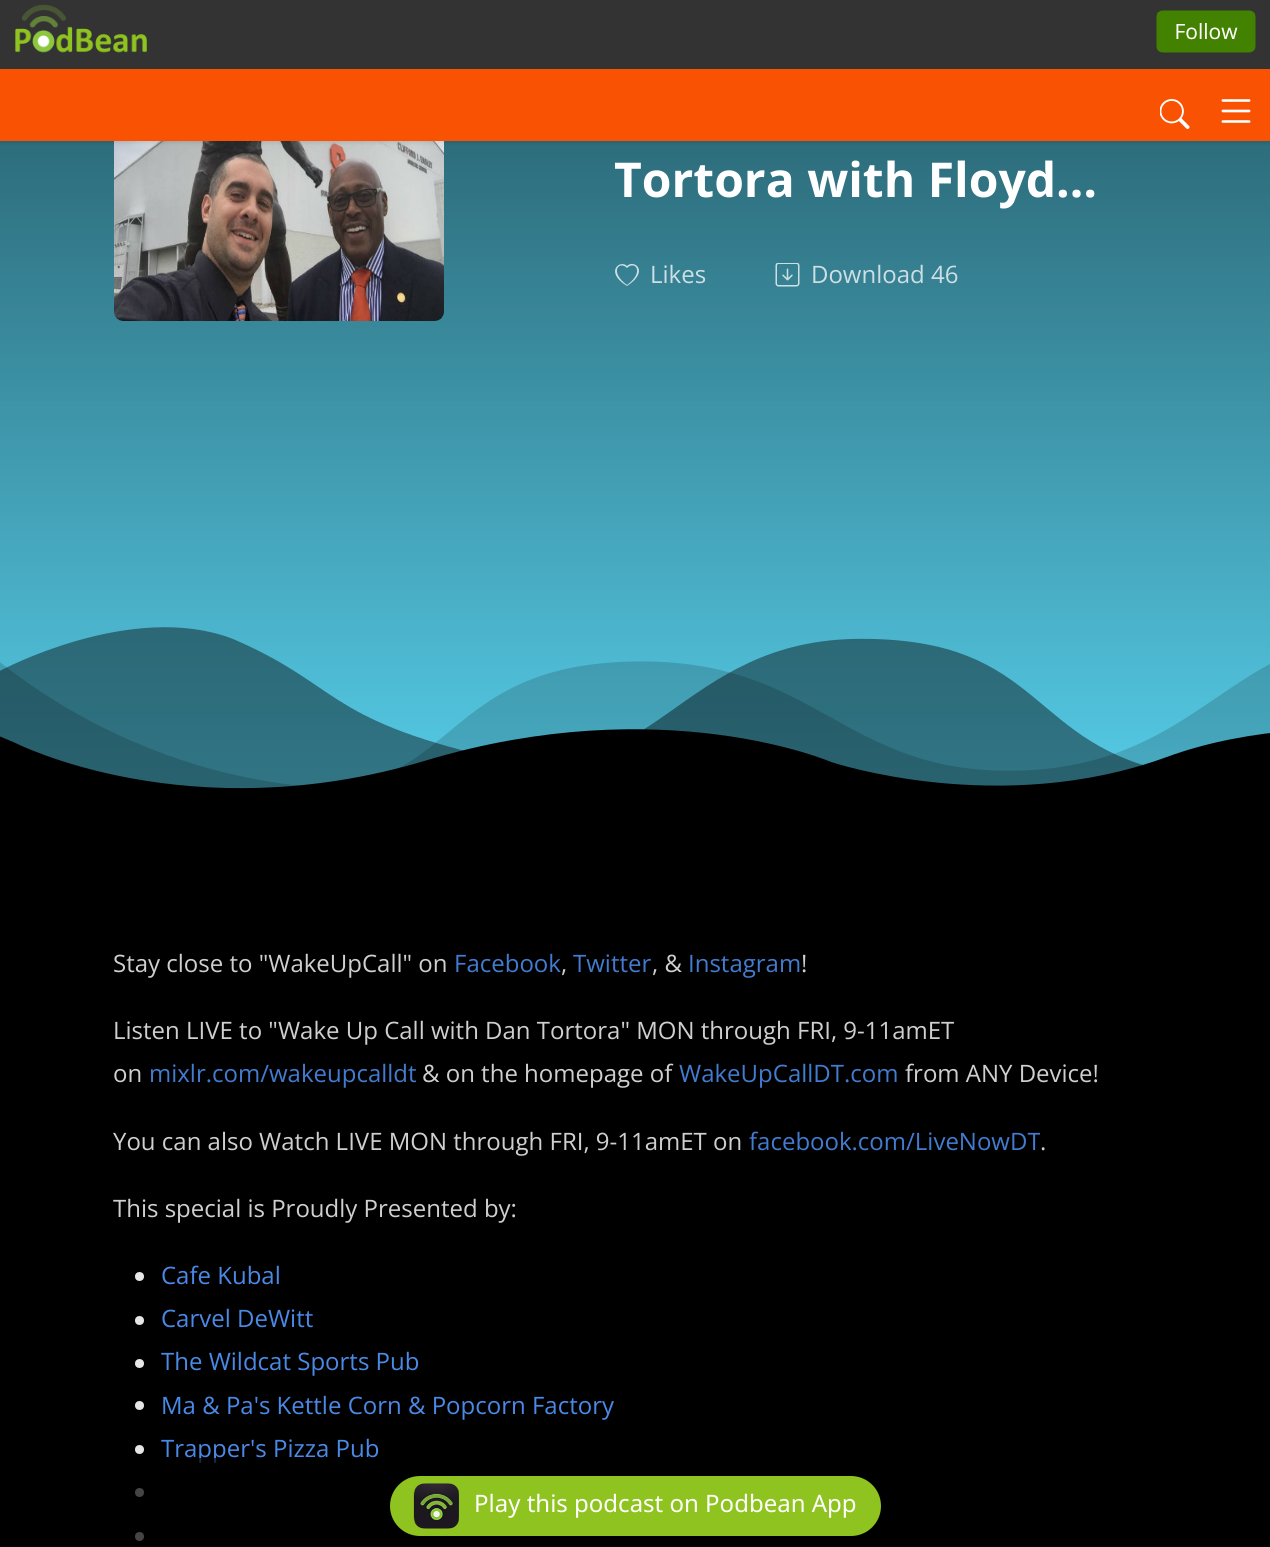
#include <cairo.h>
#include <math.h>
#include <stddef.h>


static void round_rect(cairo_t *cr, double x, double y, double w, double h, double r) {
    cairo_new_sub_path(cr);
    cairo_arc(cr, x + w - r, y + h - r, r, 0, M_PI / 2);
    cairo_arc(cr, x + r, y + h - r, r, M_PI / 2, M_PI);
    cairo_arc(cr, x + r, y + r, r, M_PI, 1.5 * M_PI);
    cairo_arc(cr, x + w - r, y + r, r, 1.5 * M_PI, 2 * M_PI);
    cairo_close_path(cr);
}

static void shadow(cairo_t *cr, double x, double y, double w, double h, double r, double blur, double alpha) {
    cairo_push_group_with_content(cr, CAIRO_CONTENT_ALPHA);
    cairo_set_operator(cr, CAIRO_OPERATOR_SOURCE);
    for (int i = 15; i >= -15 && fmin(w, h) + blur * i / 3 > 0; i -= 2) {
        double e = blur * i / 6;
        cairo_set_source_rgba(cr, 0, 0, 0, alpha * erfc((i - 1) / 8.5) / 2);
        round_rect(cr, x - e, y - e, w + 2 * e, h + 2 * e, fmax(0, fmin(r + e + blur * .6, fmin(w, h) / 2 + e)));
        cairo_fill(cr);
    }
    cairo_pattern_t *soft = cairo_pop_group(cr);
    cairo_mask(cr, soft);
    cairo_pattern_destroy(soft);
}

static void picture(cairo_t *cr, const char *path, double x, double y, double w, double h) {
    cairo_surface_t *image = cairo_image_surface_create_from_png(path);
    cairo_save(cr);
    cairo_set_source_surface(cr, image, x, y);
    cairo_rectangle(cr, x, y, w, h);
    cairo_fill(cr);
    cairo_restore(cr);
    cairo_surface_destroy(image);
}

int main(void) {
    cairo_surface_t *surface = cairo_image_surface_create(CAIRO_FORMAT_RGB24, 1270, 1547);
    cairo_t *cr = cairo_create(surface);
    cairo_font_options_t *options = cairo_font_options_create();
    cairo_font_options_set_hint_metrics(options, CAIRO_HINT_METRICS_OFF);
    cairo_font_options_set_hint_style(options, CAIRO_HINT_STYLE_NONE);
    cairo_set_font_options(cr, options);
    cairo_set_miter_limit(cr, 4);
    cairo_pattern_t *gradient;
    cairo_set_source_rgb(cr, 0, 0, 0);
    cairo_paint(cr);
    gradient = cairo_pattern_create_linear(635, 942, 635, -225);
    cairo_pattern_add_color_stop_rgba(gradient, 0, 0.369, 0.882, 1, 1);
    cairo_pattern_add_color_stop_rgba(gradient, 1, 0.09, 0.22, 0.251, 1);
    cairo_set_source(cr, gradient);
    cairo_pattern_destroy(gradient);
    cairo_rectangle(cr, 0, 141, 1270, 648);
    cairo_fill(cr);
    picture(cr, "img4.png", 114, 141, 330, 180);
    cairo_set_source_rgb(cr, 0, 0, 0);
    shadow(cr, 0, 69, 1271, 72, 0, 3, 0.2);
    cairo_set_source_rgb(cr, 0.2, 0.2, 0.2);
    cairo_rectangle(cr, 0, 0, 1270, 69);
    cairo_fill(cr);
    picture(cr, "img1.png", 15, 4, 1241, 49);
    cairo_set_source_rgb(cr, 0.969, 0.322, 0.008);
    cairo_rectangle(cr, 0, 69, 1270, 72);
    cairo_fill(cr);
    picture(cr, "img2.png", 1160, 99, 30, 30);
    picture(cr, "img3.png", 1221, 99, 30, 24);
    cairo_select_font_face(cr, "Open Sans", CAIRO_FONT_SLANT_NORMAL, CAIRO_FONT_WEIGHT_BOLD);
    cairo_set_font_size(cr, 48);
    cairo_set_source_rgb(cr, 1, 1, 1);
    cairo_move_to(cr, 614, 197);
    cairo_show_text(cr, "Tortora with Floyd…");
    cairo_set_source_rgba(cr, 1, 1, 1, 0.75);
    cairo_new_path(cr);
    cairo_move_to(cr, 627, 268);
    cairo_curve_to(cr, 619, 260, 609, 272, 627, 285);
    cairo_curve_to(cr, 645, 272, 635, 260, 627, 268);
    cairo_close_path(cr);
    cairo_move_to(cr, 627, 286);
    cairo_curve_to(cr, 604, 272, 620, 259, 627, 266);
    cairo_curve_to(cr, 634, 259, 650, 271, 627, 286);
    cairo_close_path(cr);
    cairo_fill(cr);
    cairo_select_font_face(cr, "Open Sans", CAIRO_FONT_SLANT_NORMAL, CAIRO_FONT_WEIGHT_NORMAL);
    cairo_set_font_size(cr, 24);
    cairo_set_source_rgb(cr, 0.804, 0.875, 0.894);
    cairo_move_to(cr, 650, 283);
    cairo_show_text(cr, "Likes");
    picture(cr, "img5.png", 775, 263, 25, 24);
    cairo_move_to(cr, 811, 283);
    cairo_show_text(cr, "Download 46");
    picture(cr, "img6.png", 0, 627, 1270, 315);
    cairo_set_source_rgb(cr, 0.812, 0.812, 0.812);
    cairo_move_to(cr, 113, 972);
    cairo_show_text(cr, "Stay close to \"WakeUpCall\" on");
    cairo_set_source_rgb(cr, 0.259, 0.482, 0.812);
    cairo_move_to(cr, 454, 972);
    cairo_show_text(cr, "Facebook");
    cairo_set_source_rgb(cr, 0.812, 0.812, 0.812);
    cairo_move_to(cr, 561, 972);
    cairo_show_text(cr, ",");
    cairo_set_source_rgb(cr, 0.259, 0.482, 0.812);
    cairo_move_to(cr, 573, 972);
    cairo_show_text(cr, "Twitter");
    cairo_set_source_rgb(cr, 0.812, 0.812, 0.812);
    cairo_move_to(cr, 652, 972);
    cairo_show_text(cr, ", &");
    cairo_set_source_rgb(cr, 0.259, 0.482, 0.812);
    cairo_move_to(cr, 688, 972);
    cairo_show_text(cr, "Instagram");
    cairo_set_source_rgb(cr, 0.812, 0.812, 0.812);
    cairo_move_to(cr, 801, 972);
    cairo_show_text(cr, "!");
    cairo_move_to(cr, 113, 1039);
    cairo_show_text(cr, "Listen LIVE to \"Wake Up Call with Dan Tortora\" MON through FRI, 9-11amET");
    cairo_move_to(cr, 113, 1082);
    cairo_show_text(cr, "on");
    cairo_set_source_rgb(cr, 0.259, 0.482, 0.812);
    cairo_move_to(cr, 149, 1082);
    cairo_show_text(cr, "mixlr.com/wakeupcalldt");
    cairo_set_source_rgb(cr, 0.812, 0.812, 0.812);
    cairo_move_to(cr, 422, 1082);
    cairo_show_text(cr, "& on the homepage of");
    cairo_set_source_rgb(cr, 0.259, 0.482, 0.812);
    cairo_move_to(cr, 679, 1082);
    cairo_show_text(cr, "WakeUpCallDT.com");
    cairo_set_source_rgb(cr, 0.812, 0.812, 0.812);
    cairo_move_to(cr, 905, 1082);
    cairo_show_text(cr, "from ANY Device!");
    cairo_move_to(cr, 113, 1150);
    cairo_show_text(cr, "You can also Watch LIVE MON through FRI, 9-11amET on");
    cairo_set_source_rgb(cr, 0.259, 0.482, 0.812);
    cairo_move_to(cr, 749, 1150);
    cairo_show_text(cr, "facebook.com/LiveNowDT");
    cairo_set_source_rgb(cr, 0.812, 0.812, 0.812);
    cairo_move_to(cr, 1040, 1150);
    cairo_show_text(cr, ".");
    cairo_move_to(cr, 113, 1217);
    cairo_show_text(cr, "This special is Proudly Presented by:");
    cairo_set_source_rgb(cr, 0.902, 0.902, 0.902);
    cairo_new_path(cr);
    cairo_arc(cr, 139.5, 1276.5, 4.5, 0, 2 * M_PI);
    cairo_fill(cr);
    cairo_set_source_rgb(cr, 0.29, 0.537, 0.902);
    cairo_move_to(cr, 161, 1284);
    cairo_show_text(cr, "Cafe Kubal");
    cairo_set_source_rgb(cr, 0.902, 0.902, 0.902);
    cairo_new_path(cr);
    cairo_arc(cr, 139.5, 1320.5, 4.5, 0, 2 * M_PI);
    cairo_fill(cr);
    cairo_set_source_rgb(cr, 0.29, 0.537, 0.902);
    cairo_move_to(cr, 161, 1327);
    cairo_show_text(cr, "Carvel DeWitt");
    cairo_set_source_rgb(cr, 0.902, 0.902, 0.902);
    cairo_new_path(cr);
    cairo_arc(cr, 139.5, 1363.5, 4.5, 0, 2 * M_PI);
    cairo_fill(cr);
    cairo_set_source_rgb(cr, 0.29, 0.537, 0.902);
    cairo_move_to(cr, 161, 1370);
    cairo_show_text(cr, "The Wildcat Sports Pub");
    cairo_set_source_rgb(cr, 0.902, 0.902, 0.902);
    cairo_new_path(cr);
    cairo_arc(cr, 139.5, 1405.5, 4.5, 0, 2 * M_PI);
    cairo_fill(cr);
    cairo_set_source_rgb(cr, 0.29, 0.537, 0.902);
    cairo_move_to(cr, 161, 1414);
    cairo_show_text(cr, "Ma & Pa's Kettle Corn & Popcorn Factory");
    cairo_set_source_rgb(cr, 0.902, 0.902, 0.902);
    cairo_new_path(cr);
    cairo_arc(cr, 139.5, 1449.5, 4.5, 0, 2 * M_PI);
    cairo_fill(cr);
    cairo_set_source_rgb(cr, 0.29, 0.537, 0.902);
    cairo_move_to(cr, 161, 1457);
    cairo_show_text(cr, "Trapper's Pizza Pub");
    cairo_set_source_rgb(cr, 0.902, 0.902, 0.902);
    cairo_new_path(cr);
    cairo_arc(cr, 139.5, 1492.5, 4.5, 0, 2 * M_PI);
    cairo_fill(cr);
    cairo_arc(cr, 139.5, 1536.5, 4.5, 0, 2 * M_PI);
    cairo_fill(cr);
    cairo_set_source_rgba(cr, 0, 0, 0, 0.7);
    cairo_rectangle(cr, 135, 1458, 82, 83);
    cairo_fill(cr);
    cairo_set_source_rgb(cr, 0.561, 0.765, 0.122);
    round_rect(cr, 390, 1476, 491, 60, 30);
    cairo_fill(cr);
    picture(cr, "img7.png", 413, 1483, 46, 46);
    cairo_select_font_face(cr, "Noto Sans", CAIRO_FONT_SLANT_NORMAL, CAIRO_FONT_WEIGHT_NORMAL);
    cairo_set_source_rgb(cr, 1, 1, 1);
    cairo_move_to(cr, 474, 1512);
    cairo_show_text(cr, "Play this podcast on Podbean App");
    cairo_surface_write_to_png(surface, "page.png");
    cairo_font_options_destroy(options);
    cairo_destroy(cr);
    cairo_surface_destroy(surface);
    return 0;
}
